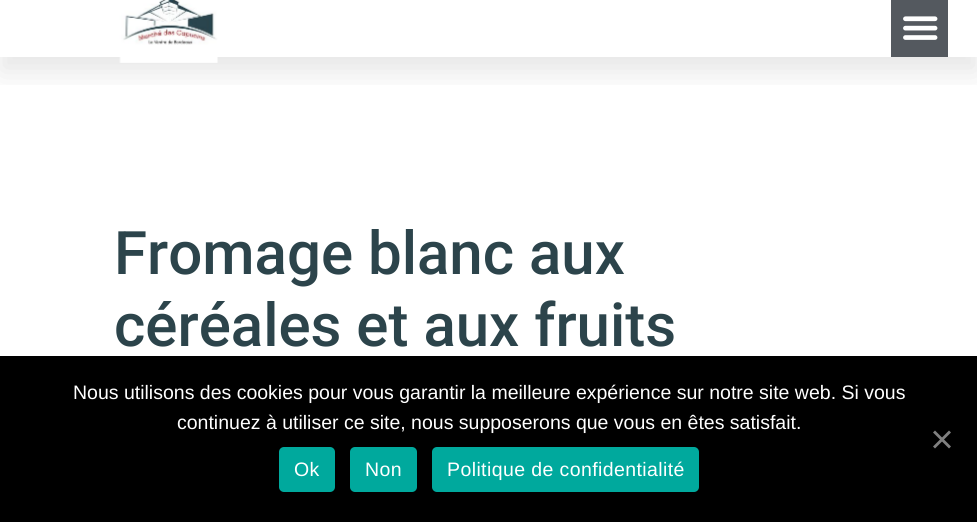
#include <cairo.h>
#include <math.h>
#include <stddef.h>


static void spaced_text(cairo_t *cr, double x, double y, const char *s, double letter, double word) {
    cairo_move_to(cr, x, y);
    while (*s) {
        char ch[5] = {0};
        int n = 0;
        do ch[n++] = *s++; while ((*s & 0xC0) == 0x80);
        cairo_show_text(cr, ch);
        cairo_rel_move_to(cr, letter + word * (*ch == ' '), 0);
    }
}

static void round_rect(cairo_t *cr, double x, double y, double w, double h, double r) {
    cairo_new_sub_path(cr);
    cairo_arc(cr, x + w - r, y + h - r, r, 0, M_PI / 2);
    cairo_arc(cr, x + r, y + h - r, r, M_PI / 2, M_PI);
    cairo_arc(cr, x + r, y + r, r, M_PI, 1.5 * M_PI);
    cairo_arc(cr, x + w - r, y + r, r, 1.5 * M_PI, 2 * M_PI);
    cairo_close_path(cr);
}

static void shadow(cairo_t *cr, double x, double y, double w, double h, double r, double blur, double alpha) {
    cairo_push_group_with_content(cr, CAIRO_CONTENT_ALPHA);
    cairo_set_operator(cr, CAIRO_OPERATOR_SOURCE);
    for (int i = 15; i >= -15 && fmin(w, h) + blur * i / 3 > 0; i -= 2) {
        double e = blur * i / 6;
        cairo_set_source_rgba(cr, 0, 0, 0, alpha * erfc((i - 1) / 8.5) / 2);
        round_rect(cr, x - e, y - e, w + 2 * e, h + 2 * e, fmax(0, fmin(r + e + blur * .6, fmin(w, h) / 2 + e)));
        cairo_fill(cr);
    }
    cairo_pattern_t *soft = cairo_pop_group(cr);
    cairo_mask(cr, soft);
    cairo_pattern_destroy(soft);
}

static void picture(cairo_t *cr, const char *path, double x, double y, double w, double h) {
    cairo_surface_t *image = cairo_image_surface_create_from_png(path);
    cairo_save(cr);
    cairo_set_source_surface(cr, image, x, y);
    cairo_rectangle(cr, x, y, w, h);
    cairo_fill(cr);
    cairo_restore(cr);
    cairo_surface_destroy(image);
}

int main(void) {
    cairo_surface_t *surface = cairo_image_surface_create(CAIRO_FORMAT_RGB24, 977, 522);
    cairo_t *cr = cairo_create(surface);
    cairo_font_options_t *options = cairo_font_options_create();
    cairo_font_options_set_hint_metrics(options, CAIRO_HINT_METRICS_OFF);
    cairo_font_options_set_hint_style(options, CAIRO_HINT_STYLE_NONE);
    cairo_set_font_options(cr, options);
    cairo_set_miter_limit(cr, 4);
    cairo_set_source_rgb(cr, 1, 1, 1);
    cairo_paint(cr);
    cairo_save(cr);
    cairo_rectangle(cr, 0, 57, 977, 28);
    cairo_clip(cr);
    cairo_set_source_rgb(cr, 0, 0, 0);
    shadow(cr, 0, 15, 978, 57, 0, 15, 0.1);
    cairo_restore(cr);
    picture(cr, "img1.png", 119, 0, 99, 63);
    cairo_set_source_rgb(cr, 0.329, 0.349, 0.373);
    cairo_rectangle(cr, 891, 0, 57, 57);
    cairo_fill(cr);
    picture(cr, "img2.png", 903, 16, 35, 24);
    cairo_select_font_face(cr, "Roboto Medium", CAIRO_FONT_SLANT_NORMAL, CAIRO_FONT_WEIGHT_NORMAL);
    cairo_set_font_size(cr, 60);
    cairo_set_source_rgb(cr, 0.173, 0.267, 0.294);
    cairo_move_to(cr, 114, 274);
    cairo_show_text(cr, "Fromage blanc aux");
    cairo_move_to(cr, 114, 346);
    cairo_show_text(cr, "céréales et aux fruits");
    cairo_set_source_rgb(cr, 0, 0, 0);
    cairo_rectangle(cr, 0, 356, 977, 166);
    cairo_fill(cr);
    cairo_select_font_face(cr, "Liberation Sans", CAIRO_FONT_SLANT_NORMAL, CAIRO_FONT_WEIGHT_NORMAL);
    cairo_set_font_size(cr, 19.5);
    cairo_set_source_rgb(cr, 1, 1, 1);
    cairo_move_to(cr, 73, 399);
    cairo_show_text(cr, "Nous utilisons des cookies pour vous garantir la meilleure expérience sur notre site web. Si vous");
    cairo_move_to(cr, 177, 429);
    cairo_show_text(cr, "continuez à utiliser ce site, nous supposerons que vous en êtes satisfait.");
    cairo_set_source_rgb(cr, 0.502, 0.502, 0.502);
    cairo_new_path(cr);
    cairo_move_to(cr, 949, 430.5);
    cairo_line_to(cr, 951, 432.5);
    cairo_line_to(cr, 935, 448.5);
    cairo_line_to(cr, 933, 446.5);
    cairo_close_path(cr);
    cairo_fill(cr);
    cairo_new_path(cr);
    cairo_move_to(cr, 933, 432.5);
    cairo_line_to(cr, 935, 430.5);
    cairo_line_to(cr, 951, 446.5);
    cairo_line_to(cr, 949, 448.5);
    cairo_close_path(cr);
    cairo_fill(cr);
    cairo_set_source_rgb(cr, 0, 0.663, 0.616);
    round_rect(cr, 279, 447, 56, 45, 5);
    cairo_fill(cr);
    cairo_set_source_rgb(cr, 1, 1, 1);
    spaced_text(cr, 294, 476, "Ok", 0.4, 0);
    cairo_set_source_rgb(cr, 0, 0.663, 0.616);
    round_rect(cr, 350, 447, 67, 45, 5);
    cairo_fill(cr);
    cairo_set_source_rgb(cr, 1, 1, 1);
    spaced_text(cr, 365, 476, "Non", 0.4, 0);
    cairo_set_source_rgb(cr, 0, 0.663, 0.616);
    round_rect(cr, 432, 447, 267, 45, 5);
    cairo_fill(cr);
    cairo_set_source_rgb(cr, 1, 1, 1);
    spaced_text(cr, 447, 476, "Politique de confidentialité", 0.4, 0);
    cairo_surface_write_to_png(surface, "page.png");
    cairo_font_options_destroy(options);
    cairo_destroy(cr);
    cairo_surface_destroy(surface);
    return 0;
}
